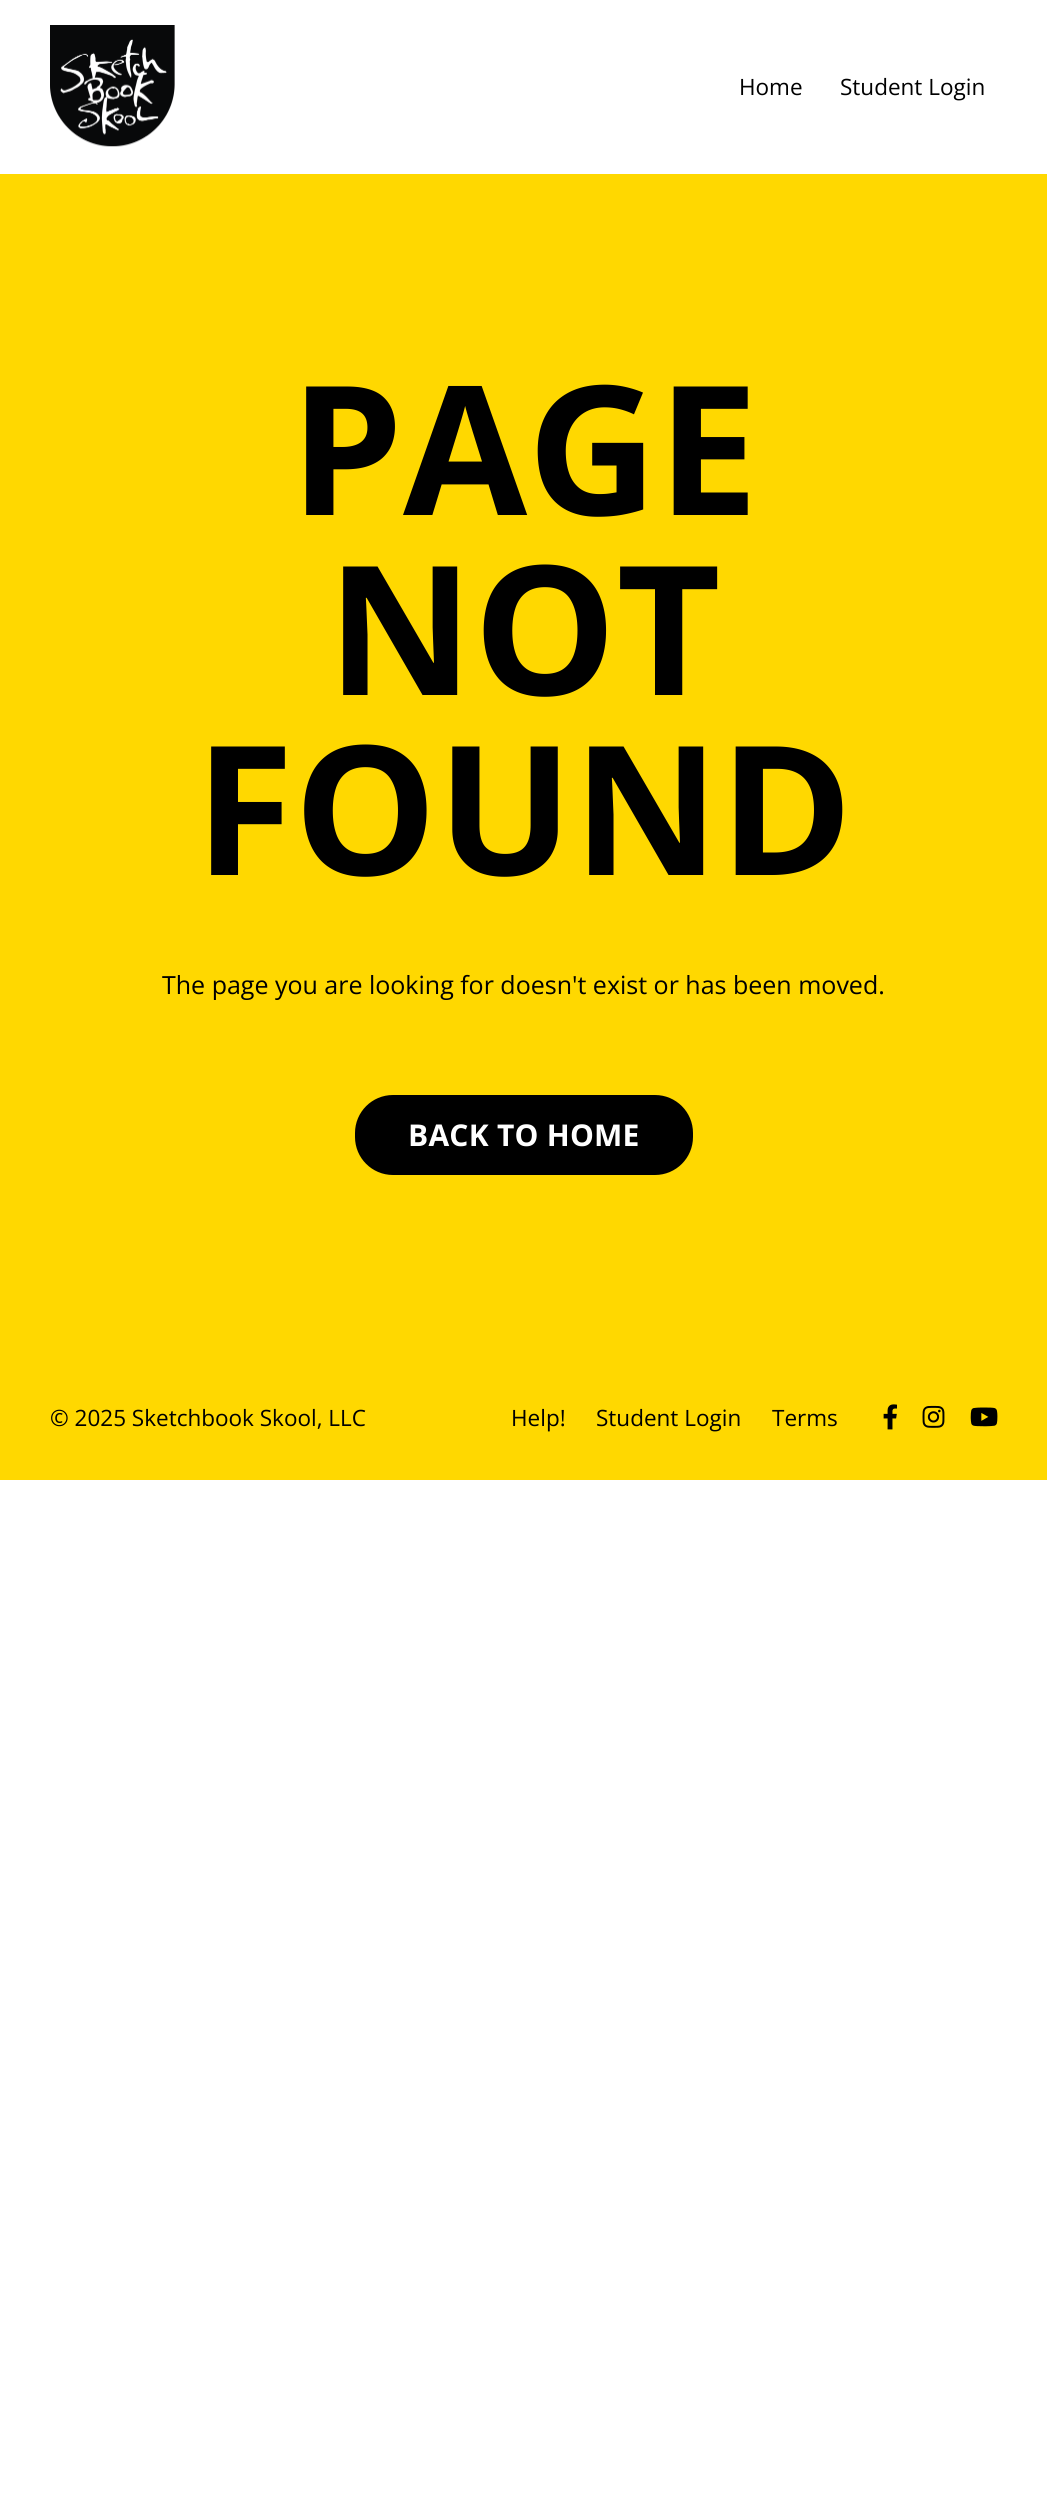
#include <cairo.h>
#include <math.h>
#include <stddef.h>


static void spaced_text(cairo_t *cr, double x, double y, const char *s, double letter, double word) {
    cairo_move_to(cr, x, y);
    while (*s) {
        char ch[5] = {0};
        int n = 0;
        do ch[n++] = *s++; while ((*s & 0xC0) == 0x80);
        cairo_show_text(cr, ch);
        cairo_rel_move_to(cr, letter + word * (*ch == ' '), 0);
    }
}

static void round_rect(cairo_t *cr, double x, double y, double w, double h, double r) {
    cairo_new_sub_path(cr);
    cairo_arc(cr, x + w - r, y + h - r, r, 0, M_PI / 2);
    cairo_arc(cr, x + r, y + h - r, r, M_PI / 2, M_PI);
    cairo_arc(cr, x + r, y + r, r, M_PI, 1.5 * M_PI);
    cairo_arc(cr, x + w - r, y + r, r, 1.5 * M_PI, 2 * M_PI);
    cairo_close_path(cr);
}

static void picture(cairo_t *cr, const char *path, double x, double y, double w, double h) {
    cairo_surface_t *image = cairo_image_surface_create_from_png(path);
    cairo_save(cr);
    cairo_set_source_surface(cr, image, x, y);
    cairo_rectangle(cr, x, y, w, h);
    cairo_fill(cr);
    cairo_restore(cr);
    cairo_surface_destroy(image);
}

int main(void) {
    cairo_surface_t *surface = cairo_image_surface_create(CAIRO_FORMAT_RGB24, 1047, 2494);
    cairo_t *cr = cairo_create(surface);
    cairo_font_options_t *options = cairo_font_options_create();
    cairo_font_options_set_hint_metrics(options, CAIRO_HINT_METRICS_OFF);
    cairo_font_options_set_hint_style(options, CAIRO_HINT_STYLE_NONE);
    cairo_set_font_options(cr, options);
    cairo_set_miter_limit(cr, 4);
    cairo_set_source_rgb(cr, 1, 1, 1);
    cairo_paint(cr);
    picture(cr, "img1.png", 50, 25, 125, 122);
    cairo_select_font_face(cr, "Open Sans", CAIRO_FONT_SLANT_NORMAL, CAIRO_FONT_WEIGHT_NORMAL);
    cairo_set_font_size(cr, 22.5);
    cairo_set_source_rgb(cr, 0, 0, 0);
    cairo_move_to(cr, 739, 95);
    cairo_show_text(cr, "Home");
    cairo_move_to(cr, 840, 95);
    cairo_show_text(cr, "Student Login");
    cairo_set_source_rgb(cr, 1, 0.847, 0);
    cairo_rectangle(cr, 0, 174, 1047, 1306);
    cairo_fill(cr);
    cairo_select_font_face(cr, "Open Sans", CAIRO_FONT_SLANT_NORMAL, CAIRO_FONT_WEIGHT_BOLD);
    cairo_set_font_size(cr, 180);
    cairo_set_source_rgb(cr, 0, 0, 0);
    cairo_move_to(cr, 290, 515);
    cairo_show_text(cr, "PAGE");
    cairo_move_to(cr, 327, 695);
    cairo_show_text(cr, "NOT");
    cairo_move_to(cr, 195, 875);
    cairo_show_text(cr, "FOUND");
    cairo_select_font_face(cr, "Open Sans", CAIRO_FONT_SLANT_NORMAL, CAIRO_FONT_WEIGHT_NORMAL);
    cairo_set_font_size(cr, 25);
    cairo_move_to(cr, 162, 994);
    cairo_show_text(cr, "The page you are looking for doesn't exist or has been moved.");
    round_rect(cr, 356.5, 1096.5, 335, 77, 36.5);
    cairo_fill_preserve(cr);
    cairo_set_line_width(cr, 3);
    cairo_stroke(cr);
    cairo_select_font_face(cr, "Open Sans", CAIRO_FONT_SLANT_NORMAL, CAIRO_FONT_WEIGHT_BOLD);
    cairo_set_font_size(cr, 30);
    cairo_set_source_rgb(cr, 1, 1, 1);
    spaced_text(cr, 408, 1146, "BACK TO HOME", 0.25, 0);
    cairo_select_font_face(cr, "Open Sans", CAIRO_FONT_SLANT_NORMAL, CAIRO_FONT_WEIGHT_NORMAL);
    cairo_set_font_size(cr, 22.5);
    cairo_set_source_rgb(cr, 0, 0, 0);
    cairo_move_to(cr, 50, 1426);
    cairo_show_text(cr, "© 2025 Sketchbook Skool, LLC");
    cairo_move_to(cr, 511, 1426);
    cairo_show_text(cr, "Help!");
    cairo_move_to(cr, 596, 1426);
    cairo_show_text(cr, "Student Login");
    cairo_move_to(cr, 772, 1426);
    cairo_show_text(cr, "Terms");
    picture(cr, "img2.png", 883, 1404, 14, 26);
    picture(cr, "img3.png", 922, 1405, 23, 23);
    picture(cr, "img4.png", 970, 1407, 28, 20);
    cairo_surface_write_to_png(surface, "page.png");
    cairo_font_options_destroy(options);
    cairo_destroy(cr);
    cairo_surface_destroy(surface);
    return 0;
}
